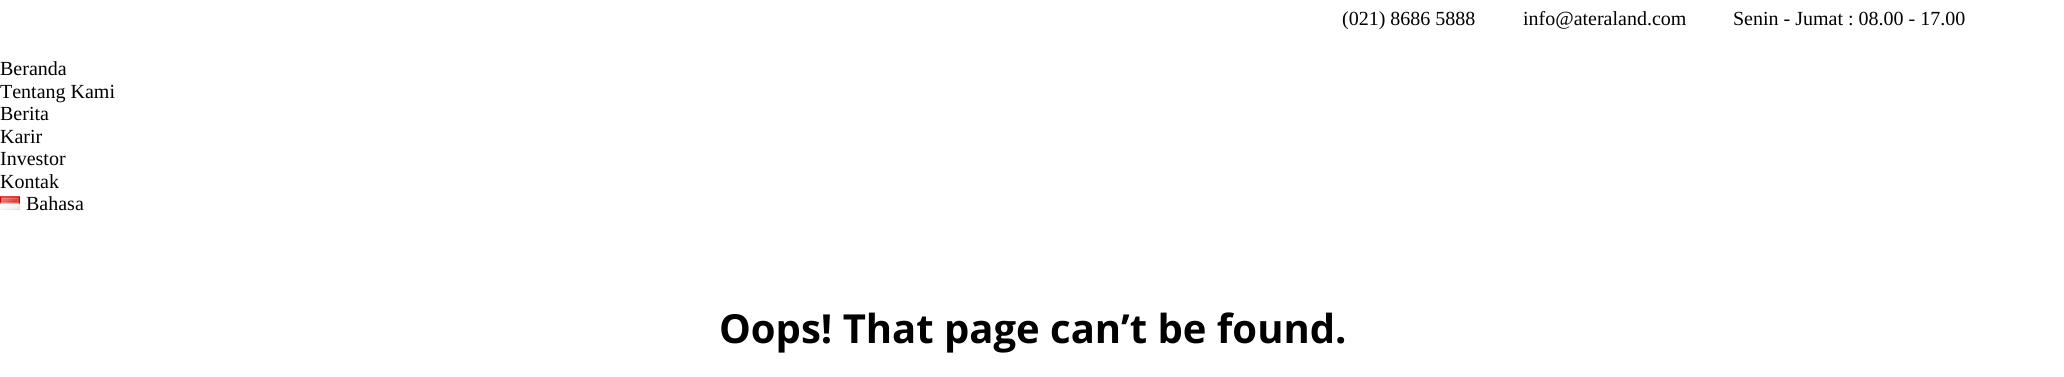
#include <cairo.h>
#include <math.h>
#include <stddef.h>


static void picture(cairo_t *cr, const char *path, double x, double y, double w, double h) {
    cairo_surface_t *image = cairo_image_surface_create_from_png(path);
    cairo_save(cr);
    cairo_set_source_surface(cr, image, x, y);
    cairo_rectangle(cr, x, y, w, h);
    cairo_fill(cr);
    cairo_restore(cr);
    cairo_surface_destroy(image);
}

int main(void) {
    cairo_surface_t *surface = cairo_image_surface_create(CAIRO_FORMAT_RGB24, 2064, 377);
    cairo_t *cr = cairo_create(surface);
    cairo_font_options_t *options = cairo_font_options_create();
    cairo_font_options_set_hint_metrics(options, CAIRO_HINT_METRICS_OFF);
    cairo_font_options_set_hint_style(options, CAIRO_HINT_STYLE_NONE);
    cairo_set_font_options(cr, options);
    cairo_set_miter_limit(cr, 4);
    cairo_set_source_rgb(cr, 1, 1, 1);
    cairo_paint(cr);
    cairo_select_font_face(cr, "Liberation Serif", CAIRO_FONT_SLANT_NORMAL, CAIRO_FONT_WEIGHT_NORMAL);
    cairo_set_font_size(cr, 20);
    cairo_set_source_rgb(cr, 0, 0, 0);
    cairo_move_to(cr, 1342, 25);
    cairo_show_text(cr, "(021) 8686 5888");
    cairo_move_to(cr, 1523, 25);
    cairo_show_text(cr, "info@ateraland.com");
    cairo_move_to(cr, 1733, 25);
    cairo_show_text(cr, "Senin - Jumat : 08.00 - 17.00");
    cairo_move_to(cr, 0, 75);
    cairo_show_text(cr, "Beranda");
    cairo_move_to(cr, 0, 98);
    cairo_show_text(cr, "Tentang Kami");
    cairo_move_to(cr, 0, 120);
    cairo_show_text(cr, "Berita");
    cairo_move_to(cr, 0, 143);
    cairo_show_text(cr, "Karir");
    cairo_move_to(cr, 0, 165);
    cairo_show_text(cr, "Investor");
    cairo_move_to(cr, 0, 188);
    cairo_show_text(cr, "Kontak");
    picture(cr, "img1.png", 0, 196, 20, 14);
    cairo_move_to(cr, 26, 210);
    cairo_show_text(cr, "Bahasa");
    cairo_select_font_face(cr, "Open Sans", CAIRO_FONT_SLANT_NORMAL, CAIRO_FONT_WEIGHT_BOLD);
    cairo_set_font_size(cr, 40);
    cairo_move_to(cr, 719, 343);
    cairo_show_text(cr, "Oops! That page can’t be found.");
    cairo_surface_write_to_png(surface, "page.png");
    cairo_font_options_destroy(options);
    cairo_destroy(cr);
    cairo_surface_destroy(surface);
    return 0;
}
